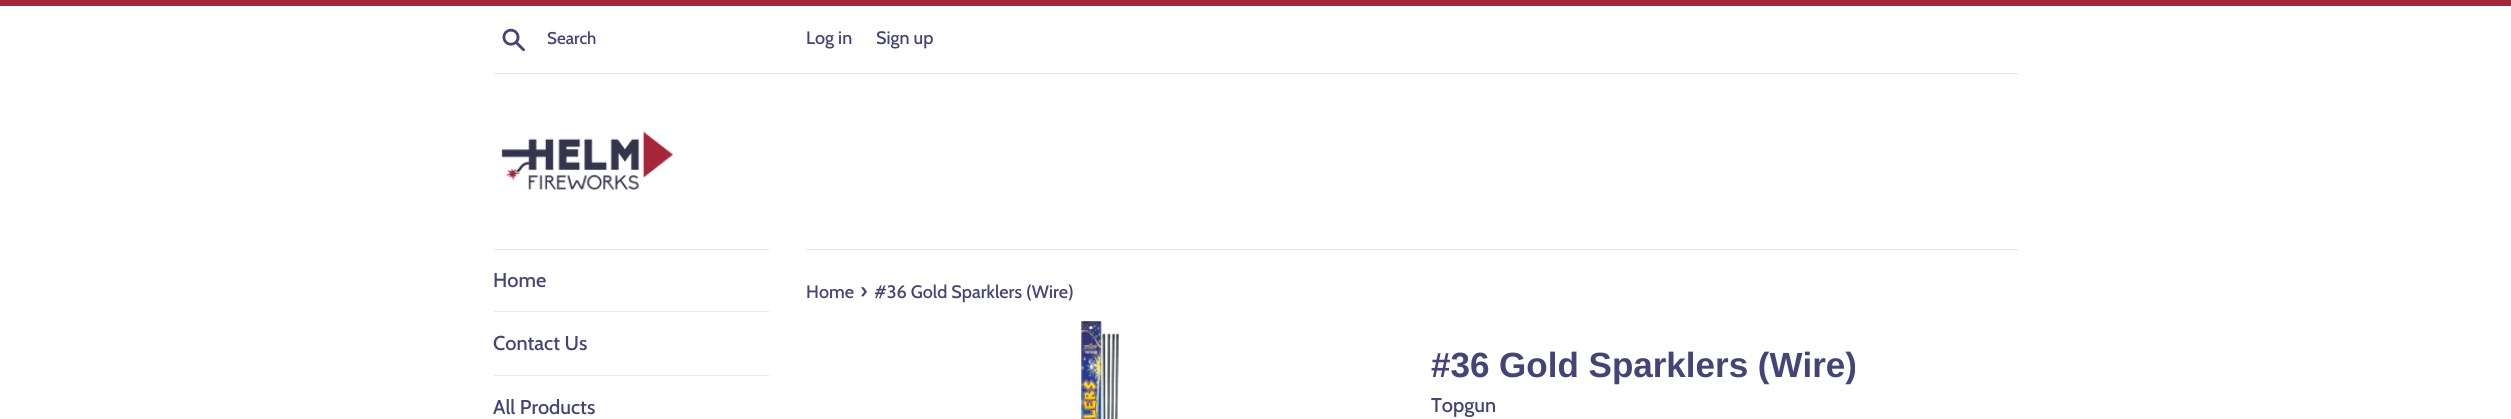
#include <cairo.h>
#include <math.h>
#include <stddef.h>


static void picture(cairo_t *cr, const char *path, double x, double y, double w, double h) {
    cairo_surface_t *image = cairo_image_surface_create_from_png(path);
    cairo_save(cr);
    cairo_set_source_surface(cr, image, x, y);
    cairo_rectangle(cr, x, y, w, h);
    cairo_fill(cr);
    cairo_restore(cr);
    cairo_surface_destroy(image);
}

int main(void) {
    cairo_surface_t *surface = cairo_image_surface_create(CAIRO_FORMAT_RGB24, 2511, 419);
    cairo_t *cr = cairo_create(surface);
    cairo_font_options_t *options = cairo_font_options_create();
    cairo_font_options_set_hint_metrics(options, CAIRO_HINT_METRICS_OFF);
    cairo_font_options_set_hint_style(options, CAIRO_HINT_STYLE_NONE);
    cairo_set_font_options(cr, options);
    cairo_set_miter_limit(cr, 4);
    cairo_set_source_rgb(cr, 1, 1, 1);
    cairo_paint(cr);
    cairo_set_source_rgb(cr, 0.655, 0.145, 0.22);
    cairo_rectangle(cr, 0, 0, 2511, 6);
    cairo_fill(cr);
    picture(cr, "img1.png", 502, 28, 23, 24);
    cairo_select_font_face(cr, "Cabin Medium", CAIRO_FONT_SLANT_NORMAL, CAIRO_FONT_WEIGHT_NORMAL);
    cairo_set_font_size(cr, 17);
    cairo_set_source_rgb(cr, 0.267, 0.267, 0.467);
    cairo_move_to(cr, 547, 44);
    cairo_show_text(cr, "Search");
    cairo_set_font_size(cr, 18);
    cairo_move_to(cr, 806, 44);
    cairo_show_text(cr, "Log in");
    cairo_move_to(cr, 876, 44);
    cairo_show_text(cr, "Sign up");
    cairo_set_source_rgb(cr, 0.929, 0.91, 0.906);
    cairo_rectangle(cr, 494, 73, 1525, 1);
    cairo_fill(cr);
    picture(cr, "img2.png", 501, 131, 172, 59);
    cairo_rectangle(cr, 494, 249, 275, 1);
    cairo_fill(cr);
    cairo_rectangle(cr, 494, 311, 275, 1);
    cairo_fill(cr);
    cairo_set_font_size(cr, 20);
    cairo_set_source_rgb(cr, 0.267, 0.267, 0.467);
    cairo_move_to(cr, 493, 287);
    cairo_show_text(cr, "Home");
    cairo_set_source_rgb(cr, 0.929, 0.91, 0.906);
    cairo_rectangle(cr, 494, 375, 275, 1);
    cairo_fill(cr);
    cairo_set_source_rgb(cr, 0.267, 0.267, 0.467);
    cairo_move_to(cr, 493, 350);
    cairo_show_text(cr, "Contact Us");
    cairo_move_to(cr, 493, 414);
    cairo_show_text(cr, "All Products");
    cairo_set_source_rgb(cr, 0.929, 0.91, 0.906);
    cairo_rectangle(cr, 806, 249, 1213, 1);
    cairo_fill(cr);
    cairo_set_font_size(cr, 18);
    cairo_set_source_rgb(cr, 0.267, 0.267, 0.467);
    cairo_move_to(cr, 806, 298);
    cairo_show_text(cr, "Home");
    cairo_set_font_size(cr, 22);
    cairo_move_to(cr, 860, 298);
    cairo_show_text(cr, "›");
    cairo_set_font_size(cr, 18);
    cairo_move_to(cr, 874, 298);
    cairo_show_text(cr, "#36 Gold Sparklers (Wire)");
    picture(cr, "img3.png", 1081, 321, 38, 98);
    cairo_select_font_face(cr, "Arimo", CAIRO_FONT_SLANT_NORMAL, CAIRO_FONT_WEIGHT_BOLD);
    cairo_set_font_size(cr, 35);
    cairo_move_to(cr, 1431, 377);
    cairo_show_text(cr, "#36 Gold Sparklers (Wire)");
    cairo_select_font_face(cr, "Cabin Medium", CAIRO_FONT_SLANT_NORMAL, CAIRO_FONT_WEIGHT_NORMAL);
    cairo_set_font_size(cr, 20);
    cairo_move_to(cr, 1431, 412);
    cairo_show_text(cr, "Topgun");
    cairo_surface_write_to_png(surface, "page.png");
    cairo_font_options_destroy(options);
    cairo_destroy(cr);
    cairo_surface_destroy(surface);
    return 0;
}
